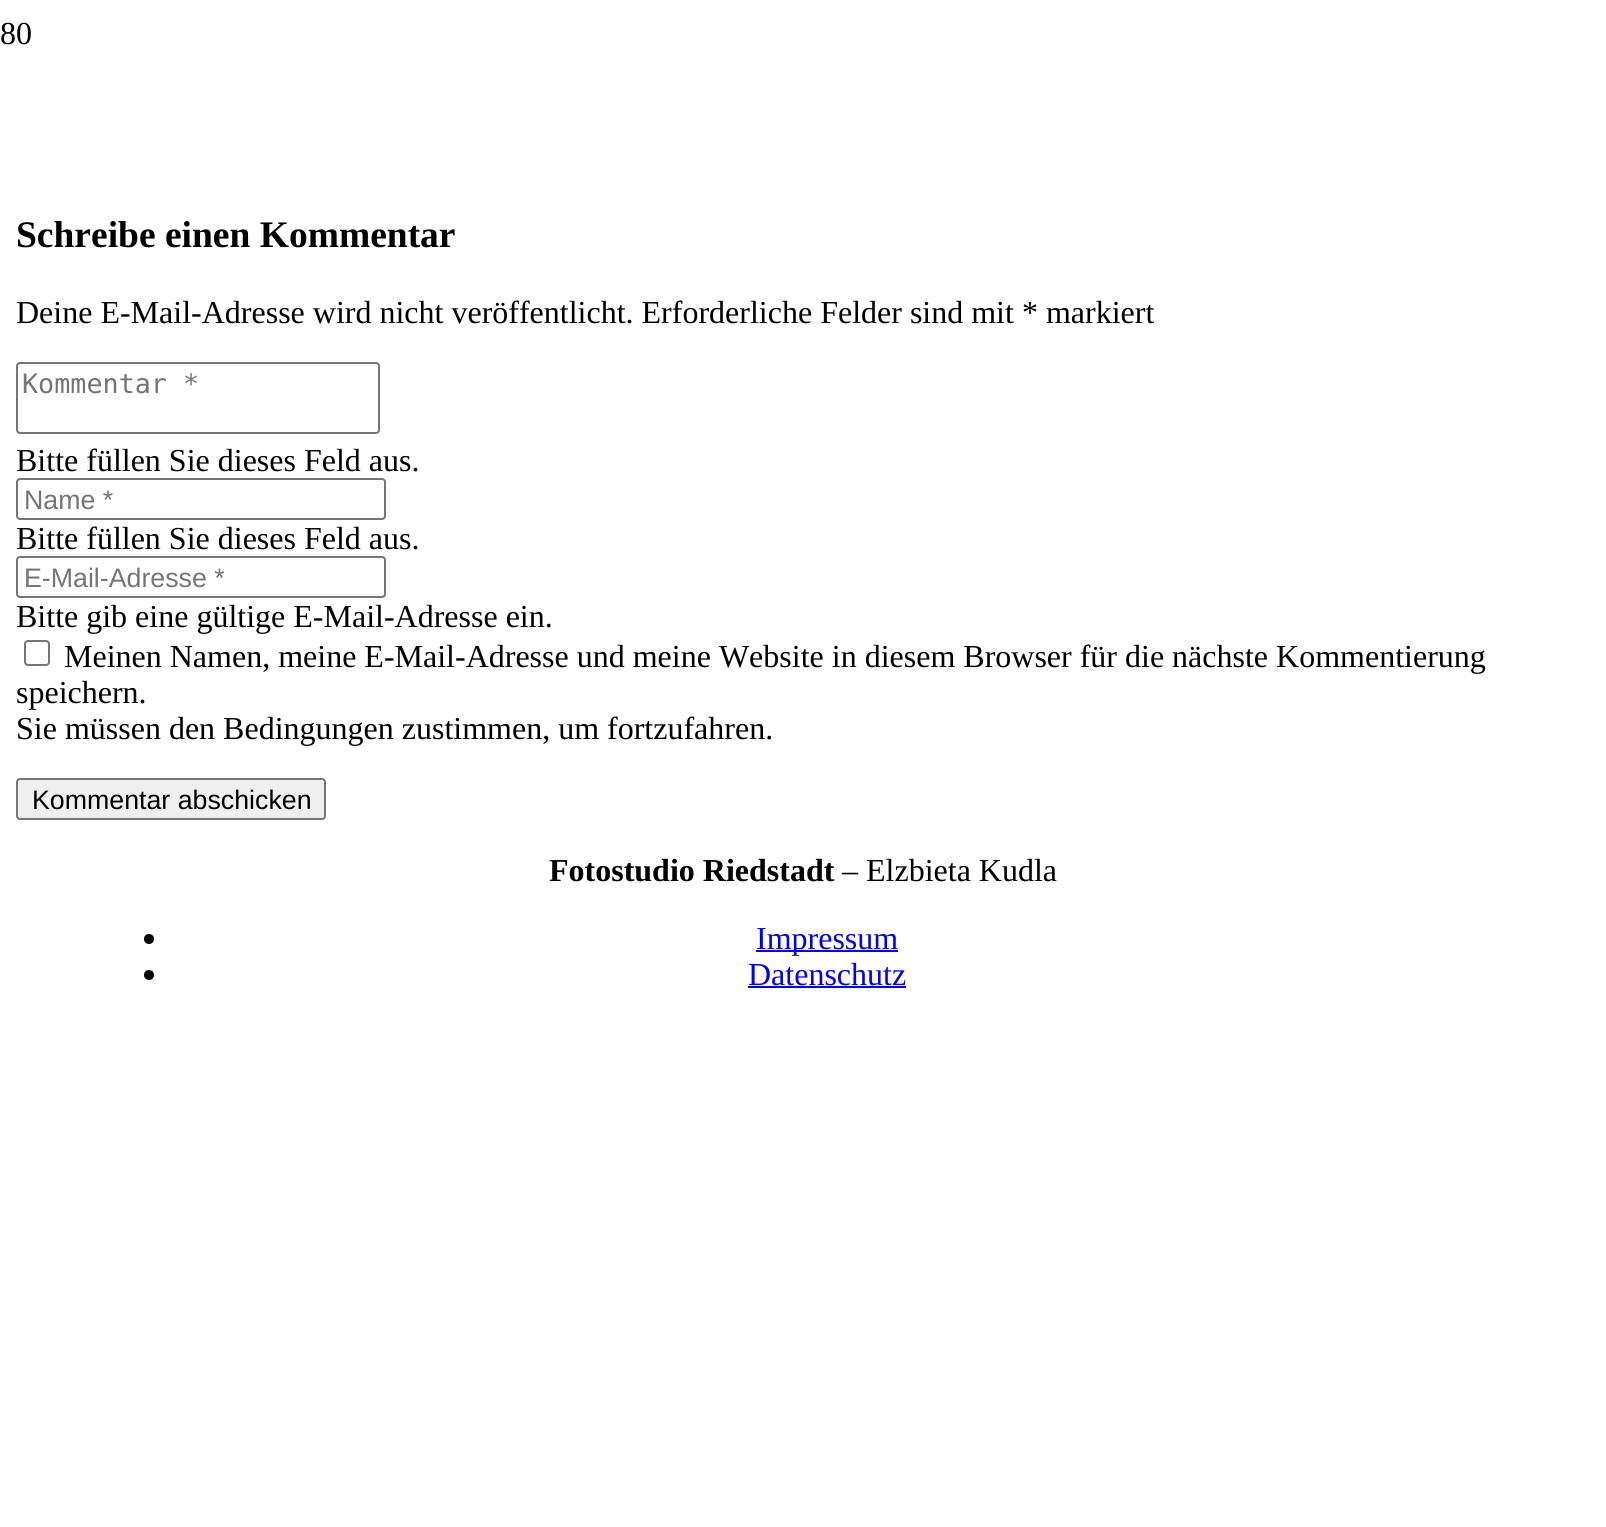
#include <cairo.h>
#include <math.h>
#include <stddef.h>


static void round_rect(cairo_t *cr, double x, double y, double w, double h, double r) {
    cairo_new_sub_path(cr);
    cairo_arc(cr, x + w - r, y + h - r, r, 0, M_PI / 2);
    cairo_arc(cr, x + r, y + h - r, r, M_PI / 2, M_PI);
    cairo_arc(cr, x + r, y + r, r, M_PI, 1.5 * M_PI);
    cairo_arc(cr, x + w - r, y + r, r, 1.5 * M_PI, 2 * M_PI);
    cairo_close_path(cr);
}

int main(void) {
    cairo_surface_t *surface = cairo_image_surface_create(CAIRO_FORMAT_RGB24, 1606, 1527);
    cairo_t *cr = cairo_create(surface);
    cairo_font_options_t *options = cairo_font_options_create();
    cairo_font_options_set_hint_metrics(options, CAIRO_HINT_METRICS_OFF);
    cairo_font_options_set_hint_style(options, CAIRO_HINT_STYLE_NONE);
    cairo_set_font_options(cr, options);
    cairo_set_miter_limit(cr, 4);
    cairo_set_source_rgb(cr, 1, 1, 1);
    cairo_paint(cr);
    cairo_select_font_face(cr, "Liberation Serif", CAIRO_FONT_SLANT_NORMAL, CAIRO_FONT_WEIGHT_NORMAL);
    cairo_set_font_size(cr, 32);
    cairo_set_source_rgb(cr, 0, 0, 0);
    cairo_move_to(cr, 0, 44);
    cairo_show_text(cr, "80");
    cairo_select_font_face(cr, "Liberation Serif", CAIRO_FONT_SLANT_NORMAL, CAIRO_FONT_WEIGHT_BOLD);
    cairo_set_font_size(cr, 37.5);
    cairo_move_to(cr, 16, 247);
    cairo_show_text(cr, "Schreibe einen Kommentar");
    cairo_select_font_face(cr, "Liberation Serif", CAIRO_FONT_SLANT_NORMAL, CAIRO_FONT_WEIGHT_NORMAL);
    cairo_set_font_size(cr, 32);
    cairo_move_to(cr, 16, 323);
    cairo_show_text(cr, "Deine E-Mail-Adresse wird nicht veröffentlicht. Erforderliche Felder sind mit * markiert");
    round_rect(cr, 17, 363, 362, 70, 3);
    cairo_set_source_rgb(cr, 0.463, 0.463, 0.463);
    cairo_stroke(cr);
    cairo_select_font_face(cr, "DejaVu Sans Mono", CAIRO_FONT_SLANT_NORMAL, CAIRO_FONT_WEIGHT_NORMAL);
    cairo_set_font_size(cr, 26.75);
    cairo_set_source_rgb(cr, 0.459, 0.459, 0.459);
    cairo_move_to(cr, 22, 393);
    cairo_show_text(cr, "Kommentar *");
    cairo_select_font_face(cr, "Liberation Serif", CAIRO_FONT_SLANT_NORMAL, CAIRO_FONT_WEIGHT_NORMAL);
    cairo_set_font_size(cr, 32);
    cairo_set_source_rgb(cr, 0, 0, 0);
    cairo_move_to(cr, 16, 471);
    cairo_show_text(cr, "Bitte füllen Sie dieses Feld aus.");
    round_rect(cr, 17, 479, 368, 40, 3);
    cairo_set_source_rgb(cr, 0.463, 0.463, 0.463);
    cairo_stroke(cr);
    cairo_select_font_face(cr, "Liberation Sans", CAIRO_FONT_SLANT_NORMAL, CAIRO_FONT_WEIGHT_NORMAL);
    cairo_set_font_size(cr, 26.75);
    cairo_set_source_rgb(cr, 0.459, 0.459, 0.459);
    cairo_move_to(cr, 24, 509);
    cairo_show_text(cr, "Name *");
    cairo_select_font_face(cr, "Liberation Serif", CAIRO_FONT_SLANT_NORMAL, CAIRO_FONT_WEIGHT_NORMAL);
    cairo_set_font_size(cr, 32);
    cairo_set_source_rgb(cr, 0, 0, 0);
    cairo_move_to(cr, 16, 549);
    cairo_show_text(cr, "Bitte füllen Sie dieses Feld aus.");
    round_rect(cr, 17, 557, 368, 40, 3);
    cairo_set_source_rgb(cr, 0.463, 0.463, 0.463);
    cairo_stroke(cr);
    cairo_select_font_face(cr, "Liberation Sans", CAIRO_FONT_SLANT_NORMAL, CAIRO_FONT_WEIGHT_NORMAL);
    cairo_set_font_size(cr, 26.75);
    cairo_set_source_rgb(cr, 0.459, 0.459, 0.459);
    cairo_move_to(cr, 24, 587);
    cairo_show_text(cr, "E-Mail-Adresse *");
    cairo_select_font_face(cr, "Liberation Serif", CAIRO_FONT_SLANT_NORMAL, CAIRO_FONT_WEIGHT_NORMAL);
    cairo_set_font_size(cr, 32);
    cairo_set_source_rgb(cr, 0, 0, 0);
    cairo_move_to(cr, 16, 627);
    cairo_show_text(cr, "Bitte gib eine gültige E-Mail-Adresse ein.");
    round_rect(cr, 25, 641, 24, 24, 3);
    cairo_set_source_rgb(cr, 0.463, 0.463, 0.463);
    cairo_stroke(cr);
    cairo_set_source_rgb(cr, 0, 0, 0);
    cairo_move_to(cr, 64, 667);
    cairo_show_text(cr, "Meinen Namen, meine E-Mail-Adresse und meine Website in diesem Browser für die nächste Kommentierung");
    cairo_move_to(cr, 16, 703);
    cairo_show_text(cr, "speichern.");
    cairo_move_to(cr, 16, 739);
    cairo_show_text(cr, "Sie müssen den Bedingungen zustimmen, um fortzufahren.");
    cairo_set_source_rgb(cr, 0.937, 0.937, 0.937);
    round_rect(cr, 17, 779, 308, 40, 3);
    cairo_fill_preserve(cr);
    cairo_set_source_rgb(cr, 0.463, 0.463, 0.463);
    cairo_stroke(cr);
    cairo_select_font_face(cr, "Liberation Sans", CAIRO_FONT_SLANT_NORMAL, CAIRO_FONT_WEIGHT_NORMAL);
    cairo_set_font_size(cr, 26.75);
    cairo_set_source_rgb(cr, 0, 0, 0);
    cairo_move_to(cr, 32, 809);
    cairo_show_text(cr, "Kommentar abschicken");
    cairo_select_font_face(cr, "Liberation Serif", CAIRO_FONT_SLANT_NORMAL, CAIRO_FONT_WEIGHT_BOLD);
    cairo_set_font_size(cr, 32);
    cairo_move_to(cr, 549, 881);
    cairo_show_text(cr, "Fotostudio Riedstadt");
    cairo_select_font_face(cr, "Liberation Serif", CAIRO_FONT_SLANT_NORMAL, CAIRO_FONT_WEIGHT_NORMAL);
    cairo_move_to(cr, 842, 881);
    cairo_show_text(cr, "– Elzbieta Kudla");
    cairo_new_path(cr);
    cairo_arc(cr, 149, 939, 5, 0, 2 * M_PI);
    cairo_fill(cr);
    cairo_set_source_rgb(cr, 0, 0, 0.933);
    cairo_rectangle(cr, 756, 950, 142, 2);
    cairo_fill(cr);
    cairo_move_to(cr, 756, 949);
    cairo_show_text(cr, "Impressum");
    cairo_set_source_rgb(cr, 0, 0, 0);
    cairo_new_path(cr);
    cairo_arc(cr, 149, 975, 5, 0, 2 * M_PI);
    cairo_fill(cr);
    cairo_set_source_rgb(cr, 0, 0, 0.933);
    cairo_move_to(cr, 748, 985);
    cairo_show_text(cr, "Datenschutz");
    cairo_rectangle(cr, 748, 986, 158, 2);
    cairo_fill(cr);
    cairo_surface_write_to_png(surface, "page.png");
    cairo_font_options_destroy(options);
    cairo_destroy(cr);
    cairo_surface_destroy(surface);
    return 0;
}
